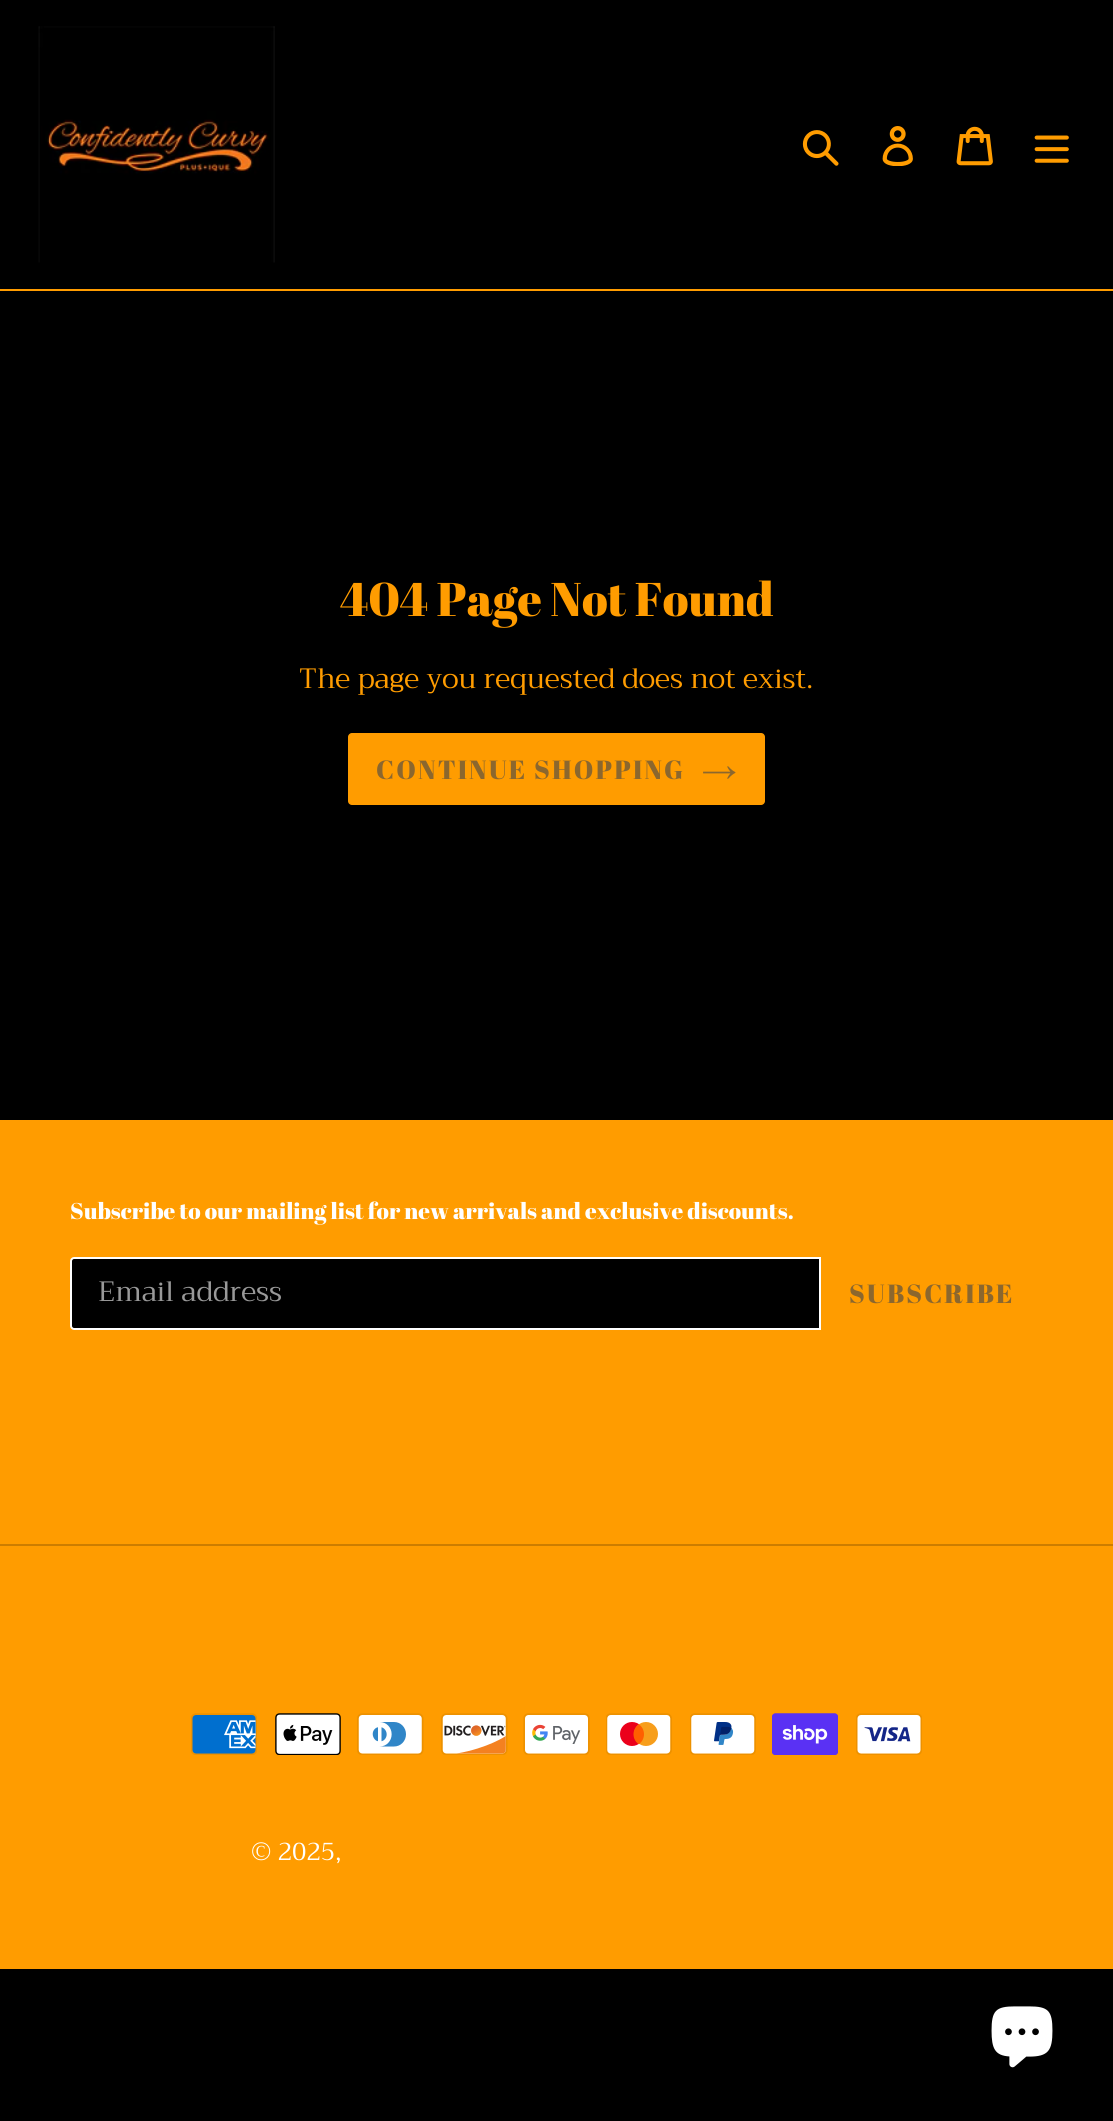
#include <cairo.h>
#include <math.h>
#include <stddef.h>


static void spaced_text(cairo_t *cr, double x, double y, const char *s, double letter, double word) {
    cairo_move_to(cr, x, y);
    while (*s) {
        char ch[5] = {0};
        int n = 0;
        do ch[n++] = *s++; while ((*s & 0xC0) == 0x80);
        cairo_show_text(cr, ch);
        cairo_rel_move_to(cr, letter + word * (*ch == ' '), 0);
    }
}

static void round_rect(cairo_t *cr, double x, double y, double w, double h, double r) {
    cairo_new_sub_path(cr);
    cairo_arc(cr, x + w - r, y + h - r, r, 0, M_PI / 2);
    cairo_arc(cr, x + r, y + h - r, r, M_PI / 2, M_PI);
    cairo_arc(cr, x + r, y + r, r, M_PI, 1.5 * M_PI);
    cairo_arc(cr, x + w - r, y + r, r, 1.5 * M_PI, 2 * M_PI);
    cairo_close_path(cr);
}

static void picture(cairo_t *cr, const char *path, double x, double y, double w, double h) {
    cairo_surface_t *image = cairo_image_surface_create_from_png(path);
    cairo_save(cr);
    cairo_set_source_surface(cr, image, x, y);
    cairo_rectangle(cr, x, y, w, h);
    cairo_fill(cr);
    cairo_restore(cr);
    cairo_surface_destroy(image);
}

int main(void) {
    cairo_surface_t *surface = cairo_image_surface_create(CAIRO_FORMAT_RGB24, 1113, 2121);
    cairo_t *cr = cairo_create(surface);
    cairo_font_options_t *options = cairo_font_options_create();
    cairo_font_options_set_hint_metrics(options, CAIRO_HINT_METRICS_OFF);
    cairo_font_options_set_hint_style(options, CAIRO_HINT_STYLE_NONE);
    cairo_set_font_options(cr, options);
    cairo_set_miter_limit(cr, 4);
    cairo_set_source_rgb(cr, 0, 0, 0);
    cairo_paint(cr);
    cairo_set_source_rgb(cr, 1, 0.612, 0);
    cairo_rectangle(cr, 0, 289, 1113, 2);
    cairo_fill(cr);
    picture(cr, "img1.png", 38, 26, 237, 237);
    picture(cr, "img2.png", 802, 130, 37, 36);
    picture(cr, "img3.png", 882, 126, 31, 40);
    picture(cr, "img4.png", 956, 126, 37, 40);
    picture(cr, "img5.png", 1034, 135, 35, 28);
    cairo_select_font_face(cr, "Abril Fatface", CAIRO_FONT_SLANT_NORMAL, CAIRO_FONT_WEIGHT_NORMAL);
    cairo_set_font_size(cr, 47.25);
    cairo_move_to(cr, 340, 616);
    cairo_show_text(cr, "404 Page Not Found");
    cairo_select_font_face(cr, "Trirong", CAIRO_FONT_SLANT_NORMAL, CAIRO_FONT_WEIGHT_NORMAL);
    cairo_set_font_size(cr, 28);
    cairo_move_to(cr, 299, 688);
    cairo_show_text(cr, "The page you requested does not exist.");
    round_rect(cr, 348, 733, 417, 72, 4);
    cairo_fill(cr);
    cairo_select_font_face(cr, "Abril Fatface", CAIRO_FONT_SLANT_NORMAL, CAIRO_FONT_WEIGHT_NORMAL);
    cairo_set_font_size(cr, 26.25);
    cairo_set_source_rgb(cr, 0.545, 0.404, 0.18);
    spaced_text(cr, 376, 779, "CONTINUE SHOPPING", 2.1, 0);
    picture(cr, "img6.png", 703, 766, 33, 13);
    cairo_set_source_rgb(cr, 1, 0.612, 0);
    cairo_rectangle(cr, 0, 1120, 1113, 849);
    cairo_fill(cr);
    cairo_set_font_size(cr, 22.75);
    cairo_set_source_rgb(cr, 1, 1, 1);
    cairo_move_to(cr, 70, 1219);
    cairo_show_text(cr, "Subscribe to our mailing list for new arrivals and exclusive discounts.");
    cairo_set_source_rgb(cr, 0, 0, 0);
    cairo_new_path(cr);
    cairo_move_to(cr, 74, 1258);
    cairo_line_to(cr, 820, 1258);
    cairo_line_to(cr, 820, 1329);
    cairo_line_to(cr, 74, 1329);
    cairo_curve_to(cr, 72.5, 1329, 71, 1327.5, 71, 1326);
    cairo_line_to(cr, 71, 1261);
    cairo_curve_to(cr, 71, 1259.5, 72.5, 1258, 74, 1258);
    cairo_close_path(cr);
    cairo_fill_preserve(cr);
    cairo_set_source_rgb(cr, 1, 1, 1);
    cairo_stroke(cr);
    cairo_select_font_face(cr, "Trirong", CAIRO_FONT_SLANT_NORMAL, CAIRO_FONT_WEIGHT_NORMAL);
    cairo_set_font_size(cr, 28);
    cairo_set_source_rgb(cr, 0.6, 0.6, 0.6);
    cairo_move_to(cr, 98, 1301);
    cairo_show_text(cr, "Email address");
    cairo_select_font_face(cr, "Abril Fatface", CAIRO_FONT_SLANT_NORMAL, CAIRO_FONT_WEIGHT_NORMAL);
    cairo_set_font_size(cr, 26.25);
    cairo_set_source_rgb(cr, 0.545, 0.404, 0.18);
    spaced_text(cr, 849, 1303, "SUBSCRIBE", 2.1, 0);
    cairo_set_source_rgb(cr, 0.8, 0.49, 0);
    cairo_rectangle(cr, 0, 1544, 1113, 2);
    cairo_fill(cr);
    picture(cr, "img7.png", 191, 1713, 66, 42);
    picture(cr, "img8.png", 275, 1713, 66, 42);
    picture(cr, "img9.png", 357, 1713, 67, 42);
    picture(cr, "img10.png", 441, 1713, 67, 42);
    picture(cr, "img11.png", 523, 1713, 67, 42);
    picture(cr, "img12.png", 606, 1713, 66, 42);
    picture(cr, "img13.png", 690, 1713, 66, 42);
    picture(cr, "img14.png", 772, 1713, 66, 42);
    picture(cr, "img15.png", 856, 1713, 66, 42);
    cairo_select_font_face(cr, "Trirong", CAIRO_FONT_SLANT_NORMAL, CAIRO_FONT_WEIGHT_NORMAL);
    cairo_set_font_size(cr, 24.5);
    cairo_set_source_rgb(cr, 1, 1, 1);
    cairo_move_to(cr, 251, 1860);
    cairo_show_text(cr, "© 2025,");
    picture(cr, "img16.png", 991, 2006, 62, 62);
    cairo_surface_write_to_png(surface, "page.png");
    cairo_font_options_destroy(options);
    cairo_destroy(cr);
    cairo_surface_destroy(surface);
    return 0;
}
